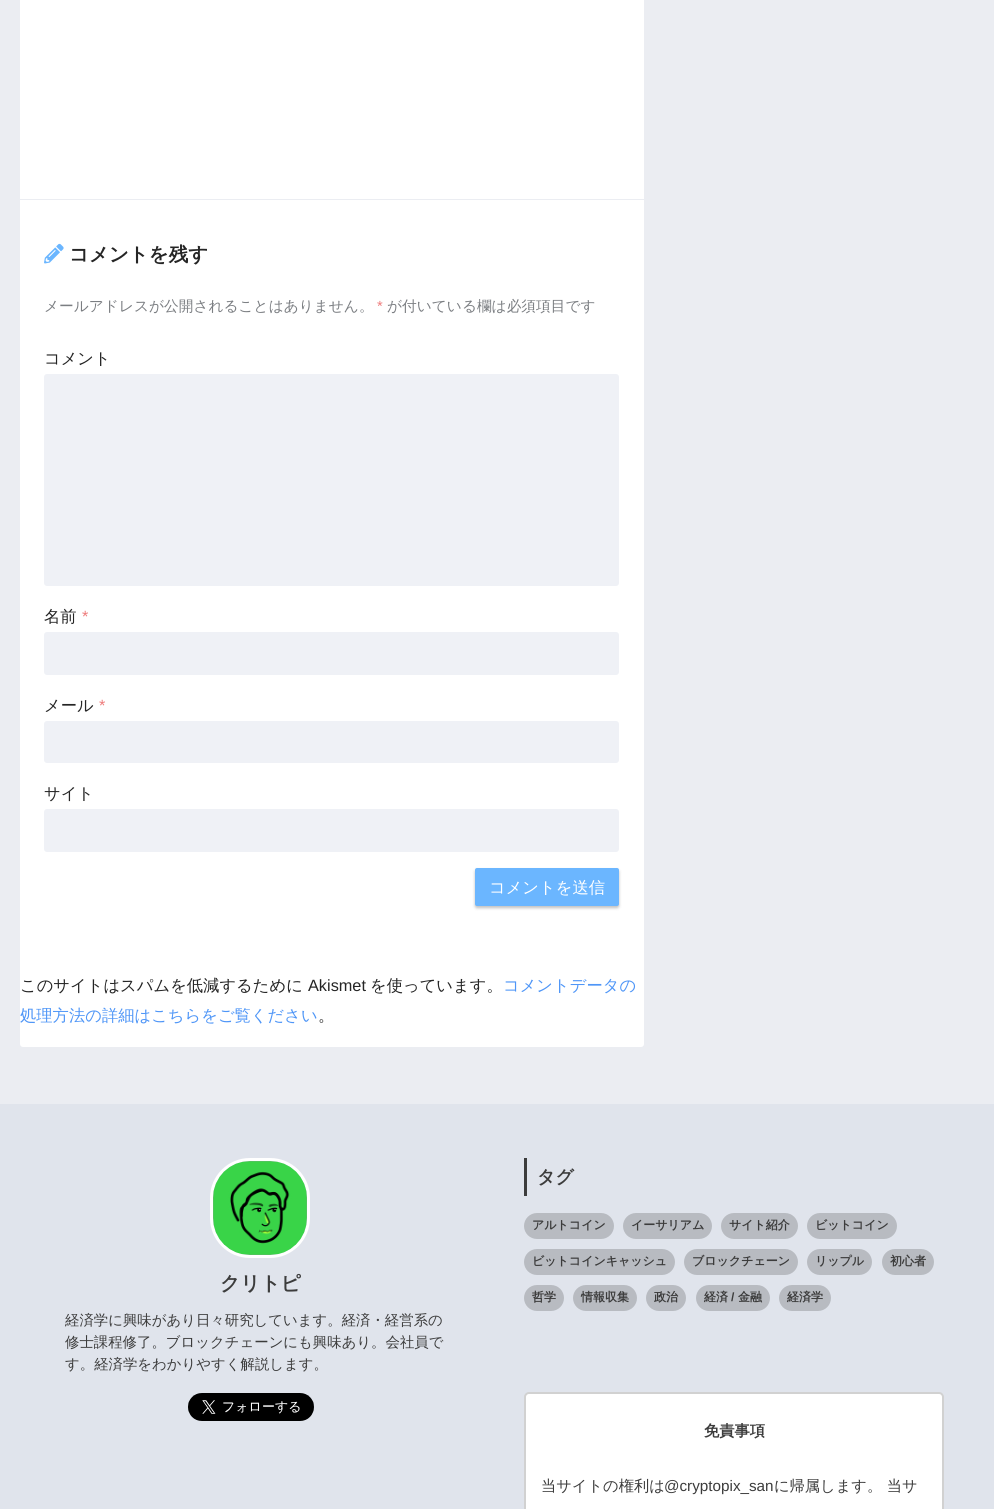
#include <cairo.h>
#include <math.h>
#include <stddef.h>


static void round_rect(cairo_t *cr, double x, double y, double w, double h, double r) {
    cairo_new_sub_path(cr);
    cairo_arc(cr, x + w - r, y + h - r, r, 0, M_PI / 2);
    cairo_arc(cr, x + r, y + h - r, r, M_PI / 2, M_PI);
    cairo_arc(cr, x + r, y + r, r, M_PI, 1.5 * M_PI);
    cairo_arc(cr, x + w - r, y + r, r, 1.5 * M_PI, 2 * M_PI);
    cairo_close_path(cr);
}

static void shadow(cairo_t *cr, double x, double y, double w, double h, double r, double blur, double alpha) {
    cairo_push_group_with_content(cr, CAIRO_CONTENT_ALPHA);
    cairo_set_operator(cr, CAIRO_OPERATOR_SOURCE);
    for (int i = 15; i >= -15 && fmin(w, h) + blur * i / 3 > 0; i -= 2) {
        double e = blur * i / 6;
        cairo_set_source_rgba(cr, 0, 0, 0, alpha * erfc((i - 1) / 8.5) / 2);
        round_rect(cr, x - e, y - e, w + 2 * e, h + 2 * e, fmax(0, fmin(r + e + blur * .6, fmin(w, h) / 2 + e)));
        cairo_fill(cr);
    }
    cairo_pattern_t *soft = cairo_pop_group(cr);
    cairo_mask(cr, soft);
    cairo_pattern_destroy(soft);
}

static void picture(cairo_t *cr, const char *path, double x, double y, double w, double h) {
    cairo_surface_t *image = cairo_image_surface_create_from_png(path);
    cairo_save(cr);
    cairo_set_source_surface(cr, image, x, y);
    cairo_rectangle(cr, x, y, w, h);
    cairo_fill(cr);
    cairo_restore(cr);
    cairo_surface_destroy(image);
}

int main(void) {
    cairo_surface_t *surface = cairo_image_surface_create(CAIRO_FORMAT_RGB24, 994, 1509);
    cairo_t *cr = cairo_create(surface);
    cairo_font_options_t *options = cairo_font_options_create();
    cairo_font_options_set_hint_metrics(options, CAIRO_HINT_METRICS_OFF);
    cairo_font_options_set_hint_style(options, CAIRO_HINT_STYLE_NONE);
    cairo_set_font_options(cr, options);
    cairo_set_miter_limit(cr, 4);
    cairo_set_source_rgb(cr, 0.918, 0.929, 0.949);
    cairo_paint(cr);
    cairo_set_source_rgb(cr, 1, 1, 1);
    round_rect(cr, 20, -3, 624, 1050, 3);
    cairo_fill(cr);
    cairo_set_source_rgb(cr, 0.918, 0.929, 0.949);
    cairo_rectangle(cr, 20, 199, 624, 1);
    cairo_fill(cr);
    picture(cr, "img1.png", 44, 243, 20, 21);
    cairo_select_font_face(cr, "WenQuanYi Zen Hei", CAIRO_FONT_SLANT_NORMAL, CAIRO_FONT_WEIGHT_BOLD);
    cairo_set_font_size(cr, 19.5);
    cairo_set_source_rgb(cr, 0.145, 0.145, 0.145);
    cairo_move_to(cr, 69, 261);
    cairo_show_text(cr, "コメントを残す");
    cairo_select_font_face(cr, "WenQuanYi Zen Hei Medium", CAIRO_FONT_SLANT_NORMAL, CAIRO_FONT_WEIGHT_NORMAL);
    cairo_set_font_size(cr, 14.7);
    cairo_set_source_rgb(cr, 0.482, 0.494, 0.51);
    cairo_move_to(cr, 44, 311);
    cairo_show_text(cr, "メールアドレスが公開されることはありません。");
    cairo_select_font_face(cr, "Liberation Sans", CAIRO_FONT_SLANT_NORMAL, CAIRO_FONT_WEIGHT_NORMAL);
    cairo_set_source_rgb(cr, 0.933, 0.482, 0.482);
    cairo_move_to(cr, 377, 311);
    cairo_show_text(cr, "*");
    cairo_select_font_face(cr, "WenQuanYi Zen Hei Medium", CAIRO_FONT_SLANT_NORMAL, CAIRO_FONT_WEIGHT_NORMAL);
    cairo_set_source_rgb(cr, 0.482, 0.494, 0.51);
    cairo_move_to(cr, 387, 311);
    cairo_show_text(cr, "が付いている欄は必須項目です");
    cairo_set_font_size(cr, 16.3);
    cairo_set_source_rgb(cr, 0.145, 0.145, 0.145);
    cairo_move_to(cr, 44, 364);
    cairo_show_text(cr, "コメント");
    cairo_set_source_rgb(cr, 0.937, 0.945, 0.961);
    round_rect(cr, 44, 374, 575, 212, 3);
    cairo_fill(cr);
    cairo_set_source_rgb(cr, 0.145, 0.145, 0.145);
    cairo_move_to(cr, 44, 622);
    cairo_show_text(cr, "名前");
    cairo_select_font_face(cr, "Liberation Sans", CAIRO_FONT_SLANT_NORMAL, CAIRO_FONT_WEIGHT_NORMAL);
    cairo_set_source_rgb(cr, 0.933, 0.482, 0.482);
    cairo_move_to(cr, 82, 622);
    cairo_show_text(cr, "*");
    cairo_set_source_rgb(cr, 0.937, 0.945, 0.961);
    round_rect(cr, 44, 632, 575, 43, 3);
    cairo_fill(cr);
    cairo_select_font_face(cr, "WenQuanYi Zen Hei Medium", CAIRO_FONT_SLANT_NORMAL, CAIRO_FONT_WEIGHT_NORMAL);
    cairo_set_source_rgb(cr, 0.145, 0.145, 0.145);
    cairo_move_to(cr, 44, 711);
    cairo_show_text(cr, "メール");
    cairo_select_font_face(cr, "Liberation Sans", CAIRO_FONT_SLANT_NORMAL, CAIRO_FONT_WEIGHT_NORMAL);
    cairo_set_source_rgb(cr, 0.933, 0.482, 0.482);
    cairo_move_to(cr, 99, 711);
    cairo_show_text(cr, "*");
    cairo_set_source_rgb(cr, 0.937, 0.945, 0.961);
    round_rect(cr, 44, 721, 575, 42, 3);
    cairo_fill(cr);
    cairo_select_font_face(cr, "WenQuanYi Zen Hei Medium", CAIRO_FONT_SLANT_NORMAL, CAIRO_FONT_WEIGHT_NORMAL);
    cairo_set_source_rgb(cr, 0.145, 0.145, 0.145);
    cairo_move_to(cr, 44, 799);
    cairo_show_text(cr, "サイト");
    cairo_set_source_rgb(cr, 0.937, 0.945, 0.961);
    round_rect(cr, 44, 809, 575, 43, 3);
    cairo_fill(cr);
    cairo_set_source_rgb(cr, 0, 0, 0);
    shadow(cr, 475, 870, 144, 38, 2, 1.5, 0.25);
    cairo_set_source_rgb(cr, 0.42, 0.714, 1);
    round_rect(cr, 475, 868, 144, 38, 2);
    cairo_fill(cr);
    cairo_set_source_rgb(cr, 1, 1, 1);
    cairo_move_to(cr, 489, 893);
    cairo_show_text(cr, "コメントを送信");
    cairo_set_source_rgb(cr, 0.145, 0.145, 0.145);
    cairo_move_to(cr, 20, 991);
    cairo_show_text(cr, "このサイトはスパムを低減するために");
    cairo_select_font_face(cr, "Liberation Sans", CAIRO_FONT_SLANT_NORMAL, CAIRO_FONT_WEIGHT_NORMAL);
    cairo_move_to(cr, 308, 991);
    cairo_show_text(cr, "Akismet");
    cairo_select_font_face(cr, "WenQuanYi Zen Hei Medium", CAIRO_FONT_SLANT_NORMAL, CAIRO_FONT_WEIGHT_NORMAL);
    cairo_move_to(cr, 370, 991);
    cairo_show_text(cr, "を使っています。");
    cairo_set_source_rgb(cr, 0.31, 0.588, 0.965);
    cairo_move_to(cr, 503, 991);
    cairo_show_text(cr, "コメントデータの");
    cairo_move_to(cr, 20, 1021);
    cairo_show_text(cr, "処理方法の詳細はこちらをご覧ください");
    cairo_set_source_rgb(cr, 0.145, 0.145, 0.145);
    cairo_move_to(cr, 318, 1021);
    cairo_show_text(cr, "。");
    cairo_set_source_rgb(cr, 0.878, 0.894, 0.922);
    cairo_rectangle(cr, 0, 1104, 994, 405);
    cairo_fill(cr);
    cairo_set_source_rgb(cr, 0.235, 0.235, 0.235);
    cairo_rectangle(cr, 524, 1158, 3, 38);
    cairo_fill(cr);
    cairo_select_font_face(cr, "WenQuanYi Zen Hei", CAIRO_FONT_SLANT_NORMAL, CAIRO_FONT_WEIGHT_BOLD);
    cairo_set_font_size(cr, 18);
    cairo_move_to(cr, 537, 1183);
    cairo_show_text(cr, "タグ");
    cairo_set_source_rgb(cr, 0.722, 0.733, 0.757);
    round_rect(cr, 524, 1213, 90, 26, 13);
    cairo_fill(cr);
    cairo_set_font_size(cr, 12);
    cairo_set_source_rgb(cr, 0.235, 0.235, 0.235);
    cairo_move_to(cr, 532, 1229);
    cairo_show_text(cr, "アルトコイン");
    cairo_set_source_rgb(cr, 0.722, 0.733, 0.757);
    round_rect(cr, 623, 1213, 89, 26, 13);
    cairo_fill(cr);
    cairo_set_source_rgb(cr, 0.235, 0.235, 0.235);
    cairo_move_to(cr, 631, 1229);
    cairo_show_text(cr, "イーサリアム");
    cairo_set_source_rgb(cr, 0.722, 0.733, 0.757);
    round_rect(cr, 721, 1213, 77, 26, 13);
    cairo_fill(cr);
    cairo_set_source_rgb(cr, 0.235, 0.235, 0.235);
    cairo_move_to(cr, 729, 1229);
    cairo_show_text(cr, "サイト紹介");
    cairo_set_source_rgb(cr, 0.722, 0.733, 0.757);
    round_rect(cr, 807, 1213, 90, 26, 13);
    cairo_fill(cr);
    cairo_set_source_rgb(cr, 0.235, 0.235, 0.235);
    cairo_move_to(cr, 815, 1229);
    cairo_show_text(cr, "ビットコイン");
    cairo_set_source_rgb(cr, 0.722, 0.733, 0.757);
    round_rect(cr, 524, 1249, 151, 26, 13);
    cairo_fill(cr);
    cairo_set_source_rgb(cr, 0.235, 0.235, 0.235);
    cairo_move_to(cr, 532, 1265);
    cairo_show_text(cr, "ビットコインキャッシュ");
    cairo_set_source_rgb(cr, 0.722, 0.733, 0.757);
    round_rect(cr, 684, 1249, 114, 26, 13);
    cairo_fill(cr);
    cairo_set_source_rgb(cr, 0.235, 0.235, 0.235);
    cairo_move_to(cr, 692, 1265);
    cairo_show_text(cr, "ブロックチェーン");
    cairo_set_source_rgb(cr, 0.722, 0.733, 0.757);
    round_rect(cr, 807, 1249, 65, 26, 13);
    cairo_fill(cr);
    cairo_set_source_rgb(cr, 0.235, 0.235, 0.235);
    cairo_move_to(cr, 815, 1265);
    cairo_show_text(cr, "リップル");
    cairo_set_source_rgb(cr, 0.722, 0.733, 0.757);
    round_rect(cr, 882, 1249, 52, 26, 13);
    cairo_fill(cr);
    cairo_set_source_rgb(cr, 0.235, 0.235, 0.235);
    cairo_move_to(cr, 890, 1265);
    cairo_show_text(cr, "初心者");
    cairo_set_source_rgb(cr, 0.722, 0.733, 0.757);
    round_rect(cr, 524, 1285, 40, 26, 13);
    cairo_fill(cr);
    cairo_set_source_rgb(cr, 0.235, 0.235, 0.235);
    cairo_move_to(cr, 532, 1301);
    cairo_show_text(cr, "哲学");
    cairo_set_source_rgb(cr, 0.722, 0.733, 0.757);
    round_rect(cr, 573, 1285, 64, 26, 13);
    cairo_fill(cr);
    cairo_set_source_rgb(cr, 0.235, 0.235, 0.235);
    cairo_move_to(cr, 581, 1301);
    cairo_show_text(cr, "情報収集");
    cairo_set_source_rgb(cr, 0.722, 0.733, 0.757);
    round_rect(cr, 646, 1285, 40, 26, 13);
    cairo_fill(cr);
    cairo_set_source_rgb(cr, 0.235, 0.235, 0.235);
    cairo_move_to(cr, 654, 1301);
    cairo_show_text(cr, "政治");
    cairo_set_source_rgb(cr, 0.722, 0.733, 0.757);
    round_rect(cr, 696, 1285, 74, 26, 13);
    cairo_fill(cr);
    cairo_set_source_rgb(cr, 0.235, 0.235, 0.235);
    cairo_move_to(cr, 704, 1301);
    cairo_show_text(cr, "経済");
    cairo_select_font_face(cr, "Liberation Sans", CAIRO_FONT_SLANT_NORMAL, CAIRO_FONT_WEIGHT_BOLD);
    cairo_move_to(cr, 731, 1301);
    cairo_show_text(cr, "/");
    cairo_select_font_face(cr, "WenQuanYi Zen Hei", CAIRO_FONT_SLANT_NORMAL, CAIRO_FONT_WEIGHT_BOLD);
    cairo_move_to(cr, 738, 1301);
    cairo_show_text(cr, "金融");
    cairo_set_source_rgb(cr, 0.722, 0.733, 0.757);
    round_rect(cr, 779, 1285, 52, 26, 13);
    cairo_fill(cr);
    cairo_set_source_rgb(cr, 0.235, 0.235, 0.235);
    cairo_move_to(cr, 787, 1301);
    cairo_show_text(cr, "経済学");
    round_rect(cr, 211.5, 1159.5, 97, 97, 38.5);
    cairo_set_source_rgb(cr, 1, 1, 1);
    cairo_set_line_width(cr, 3);
    cairo_stroke(cr);
    picture(cr, "img2.png", 213, 1161, 94, 94);
    cairo_set_font_size(cr, 19.75);
    cairo_set_source_rgb(cr, 0.235, 0.235, 0.235);
    cairo_move_to(cr, 220, 1290);
    cairo_show_text(cr, "クリトピ");
    cairo_select_font_face(cr, "WenQuanYi Zen Hei Medium", CAIRO_FONT_SLANT_NORMAL, CAIRO_FONT_WEIGHT_NORMAL);
    cairo_set_font_size(cr, 14.4);
    cairo_move_to(cr, 65, 1325);
    cairo_show_text(cr, "経済学に興味があり日々研究しています。経済・経営系の");
    cairo_move_to(cr, 65, 1347);
    cairo_show_text(cr, "修士課程修了。ブロックチェーンにも興味あり。会社員で");
    cairo_move_to(cr, 65, 1369);
    cairo_show_text(cr, "す。経済学をわかりやすく解説します。");
    picture(cr, "img3.png", 188, 1393, 126, 28);
    cairo_set_source_rgb(cr, 1, 1, 1);
    round_rect(cr, 525, 1393, 418, 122, 4);
    cairo_fill_preserve(cr);
    cairo_set_source_rgb(cr, 0.82, 0.82, 0.82);
    cairo_set_line_width(cr, 2);
    cairo_stroke(cr);
    cairo_select_font_face(cr, "WenQuanYi Zen Hei", CAIRO_FONT_SLANT_NORMAL, CAIRO_FONT_WEIGHT_BOLD);
    cairo_set_font_size(cr, 15.25);
    cairo_set_source_rgb(cr, 0.235, 0.235, 0.235);
    cairo_move_to(cr, 704, 1436);
    cairo_show_text(cr, "免責事項");
    cairo_select_font_face(cr, "WenQuanYi Zen Hei Medium", CAIRO_FONT_SLANT_NORMAL, CAIRO_FONT_WEIGHT_NORMAL);
    cairo_move_to(cr, 541, 1491);
    cairo_show_text(cr, "当サイトの権利は");
    cairo_select_font_face(cr, "Liberation Sans", CAIRO_FONT_SLANT_NORMAL, CAIRO_FONT_WEIGHT_NORMAL);
    cairo_move_to(cr, 664, 1491);
    cairo_show_text(cr, "@cryptopix_san");
    cairo_select_font_face(cr, "WenQuanYi Zen Hei Medium", CAIRO_FONT_SLANT_NORMAL, CAIRO_FONT_WEIGHT_NORMAL);
    cairo_move_to(cr, 774, 1491);
    cairo_show_text(cr, "に帰属します。 当サ");
    cairo_surface_write_to_png(surface, "page.png");
    cairo_font_options_destroy(options);
    cairo_destroy(cr);
    cairo_surface_destroy(surface);
    return 0;
}
